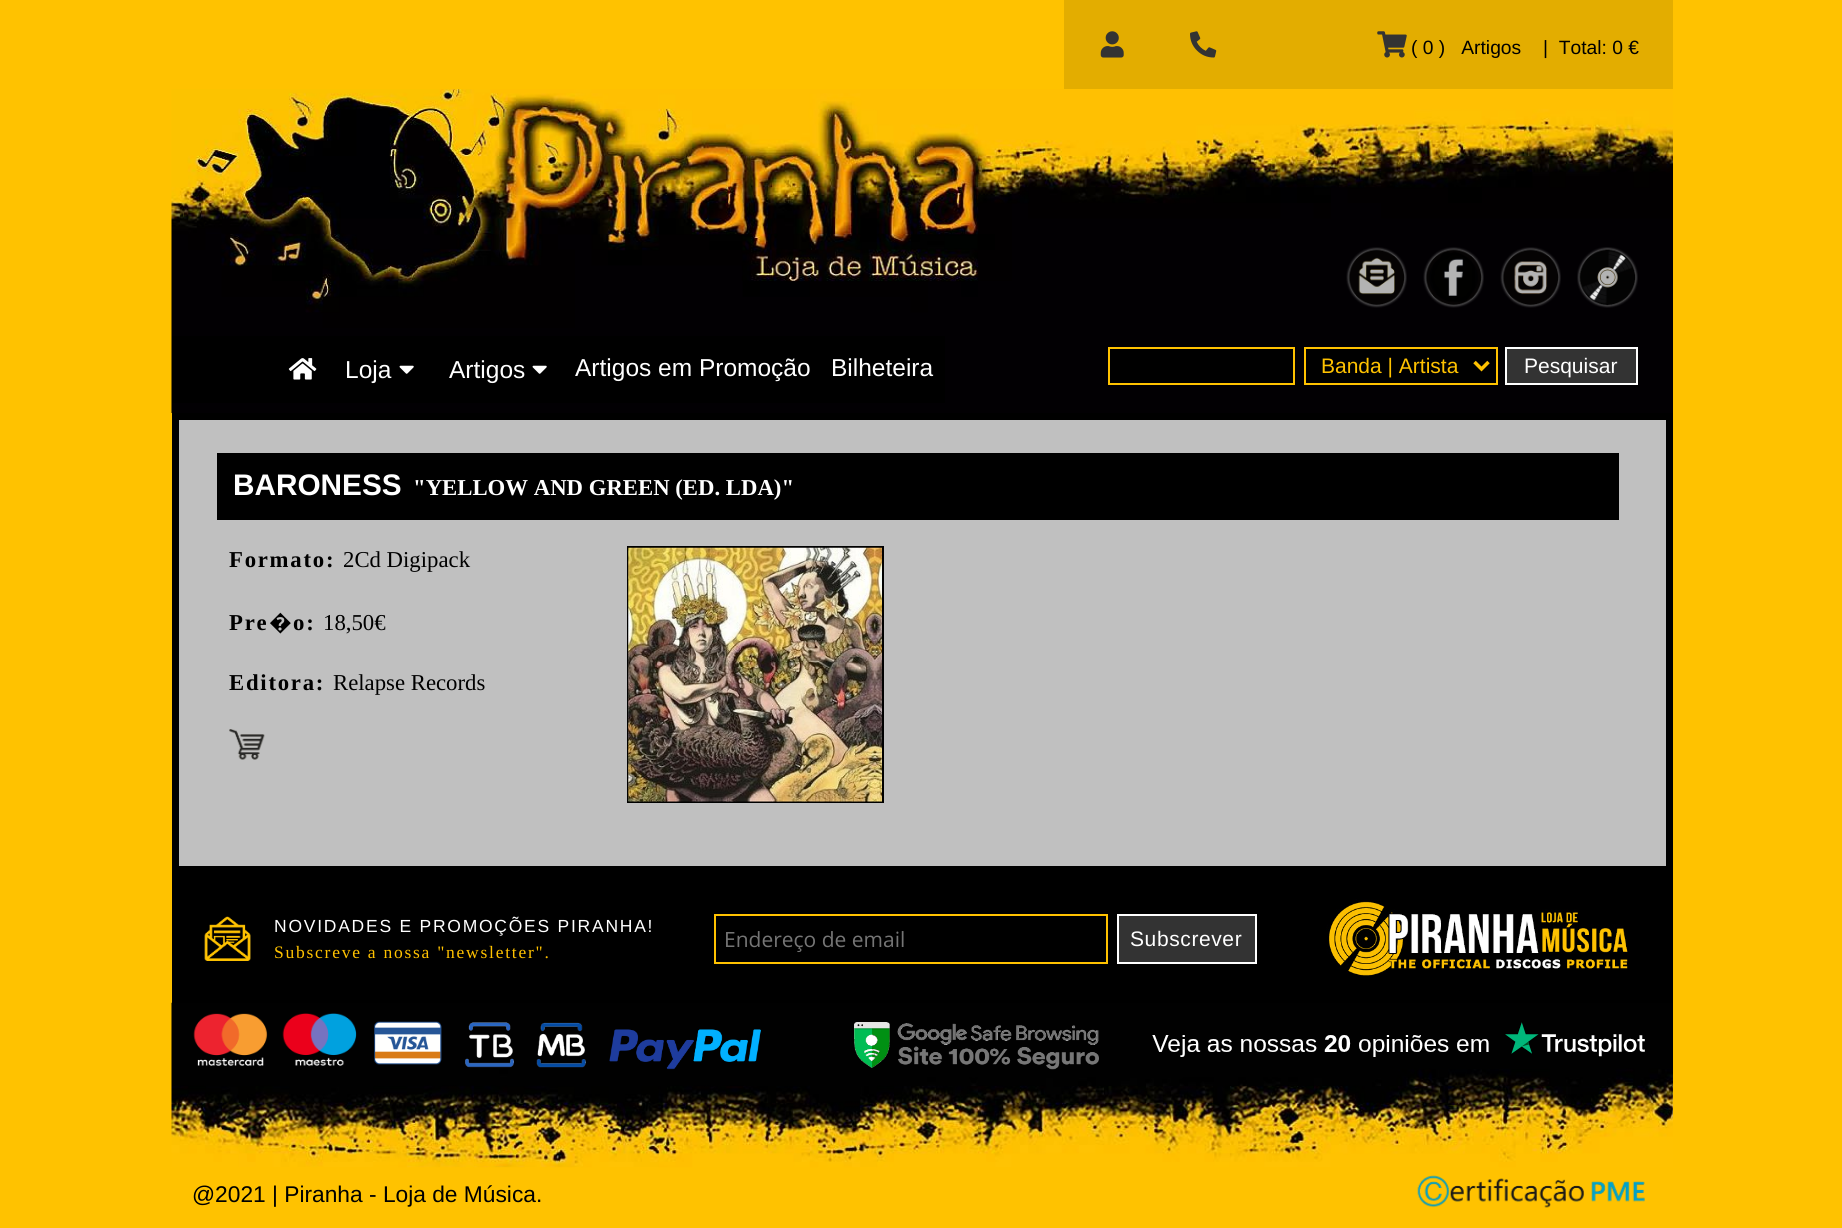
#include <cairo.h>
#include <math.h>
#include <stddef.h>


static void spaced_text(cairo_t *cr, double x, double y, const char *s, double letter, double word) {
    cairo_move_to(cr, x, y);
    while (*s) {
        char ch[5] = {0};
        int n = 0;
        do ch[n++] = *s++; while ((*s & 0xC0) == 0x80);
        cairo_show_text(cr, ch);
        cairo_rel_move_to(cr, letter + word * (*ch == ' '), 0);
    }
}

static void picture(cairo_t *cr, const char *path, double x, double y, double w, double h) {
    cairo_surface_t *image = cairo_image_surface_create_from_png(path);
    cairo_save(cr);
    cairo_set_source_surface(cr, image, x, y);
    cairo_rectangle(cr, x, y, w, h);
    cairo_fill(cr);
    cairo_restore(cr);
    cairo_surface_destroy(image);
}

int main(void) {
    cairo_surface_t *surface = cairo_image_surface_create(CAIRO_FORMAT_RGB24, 1842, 1228);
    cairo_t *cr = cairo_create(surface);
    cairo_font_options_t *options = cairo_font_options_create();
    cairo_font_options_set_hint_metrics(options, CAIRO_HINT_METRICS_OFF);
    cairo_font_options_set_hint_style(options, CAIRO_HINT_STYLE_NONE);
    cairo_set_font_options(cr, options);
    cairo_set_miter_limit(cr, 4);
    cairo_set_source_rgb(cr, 1, 0.761, 0);
    cairo_paint(cr);
    cairo_set_source_rgb(cr, 0.89, 0.678, 0);
    cairo_rectangle(cr, 1064, 0, 609, 89);
    cairo_fill(cr);
    picture(cr, "img1.png", 1100, 31, 24, 27);
    picture(cr, "img2.png", 1190, 31, 27, 27);
    picture(cr, "img3.png", 1377, 31, 30, 27);
    cairo_select_font_face(cr, "Liberation Sans", CAIRO_FONT_SLANT_NORMAL, CAIRO_FONT_WEIGHT_NORMAL);
    cairo_set_font_size(cr, 19.25);
    cairo_set_source_rgb(cr, 0, 0, 0);
    cairo_move_to(cr, 1411, 54);
    cairo_show_text(cr, "( 0 )   Artigos");
    cairo_move_to(cr, 1543, 54);
    cairo_show_text(cr, "|  Total: 0 €");
    picture(cr, "img4.png", 171, 89, 1502, 324);
    cairo_rectangle(cr, 172, 336, 773, 67);
    cairo_fill(cr);
    picture(cr, "img5.png", 288, 358, 29, 22);
    cairo_set_font_size(cr, 24.5);
    cairo_set_source_rgb(cr, 1, 1, 1);
    cairo_move_to(cr, 345, 378);
    cairo_show_text(cr, "Loja");
    picture(cr, "img6.png", 399, 365, 15, 9);
    cairo_move_to(cr, 449, 378);
    cairo_show_text(cr, "Artigos");
    picture(cr, "img6.png", 532, 365, 15, 9);
    cairo_move_to(cr, 575, 376);
    cairo_show_text(cr, "Artigos em Promoção");
    cairo_move_to(cr, 831, 376);
    cairo_show_text(cr, "Bilheteira");
    picture(cr, "img7.png", 1346, 247, 61, 61);
    picture(cr, "img8.png", 1423, 247, 61, 61);
    picture(cr, "img9.png", 1500, 247, 61, 61);
    picture(cr, "img10.png", 1577, 247, 61, 61);
    cairo_set_source_rgb(cr, 0, 0, 0);
    cairo_rectangle(cr, 1109, 348, 185, 36);
    cairo_fill_preserve(cr);
    cairo_set_source_rgb(cr, 1, 0.761, 0);
    cairo_stroke(cr);
    cairo_set_source_rgb(cr, 0, 0, 0);
    cairo_rectangle(cr, 1305, 348, 192, 36);
    cairo_fill_preserve(cr);
    cairo_set_source_rgb(cr, 1, 0.761, 0);
    cairo_stroke(cr);
    cairo_new_path(cr);
    cairo_move_to(cr, 1474.5, 362);
    cairo_line_to(cr, 1481.5, 369);
    cairo_line_to(cr, 1488.5, 362);
    cairo_set_line_width(cr, 3.5);
    cairo_stroke(cr);
    cairo_set_font_size(cr, 21);
    cairo_move_to(cr, 1321, 373);
    cairo_show_text(cr, "Banda | Artista");
    cairo_set_source_rgb(cr, 0.2, 0.2, 0.2);
    cairo_rectangle(cr, 1506, 348, 131, 36);
    cairo_fill_preserve(cr);
    cairo_set_source_rgb(cr, 1, 1, 1);
    cairo_set_line_width(cr, 2);
    cairo_stroke(cr);
    cairo_move_to(cr, 1524, 373);
    cairo_show_text(cr, "Pesquisar");
    cairo_set_source_rgb(cr, 0, 0, 0);
    cairo_rectangle(cr, 172, 413, 1501, 590);
    cairo_fill(cr);
    cairo_set_source_rgb(cr, 0.753, 0.753, 0.753);
    cairo_rectangle(cr, 179, 420, 1487, 446);
    cairo_fill(cr);
    cairo_set_source_rgb(cr, 0, 0, 0);
    cairo_rectangle(cr, 217, 453, 1402, 67);
    cairo_fill(cr);
    cairo_select_font_face(cr, "Liberation Sans", CAIRO_FONT_SLANT_NORMAL, CAIRO_FONT_WEIGHT_BOLD);
    cairo_set_font_size(cr, 29.75);
    cairo_set_source_rgb(cr, 1, 1, 1);
    cairo_move_to(cr, 233, 495);
    cairo_show_text(cr, "BARONESS");
    cairo_select_font_face(cr, "Liberation Serif", CAIRO_FONT_SLANT_NORMAL, CAIRO_FONT_WEIGHT_BOLD);
    cairo_set_font_size(cr, 22.75);
    cairo_move_to(cr, 413, 495);
    cairo_show_text(cr, "\"YELLOW AND GREEN (ED. LDA)\"");
    cairo_set_source_rgb(cr, 0, 0, 0);
    spaced_text(cr, 229, 567, "Formato:", 1.75, 0);
    cairo_select_font_face(cr, "Liberation Serif", CAIRO_FONT_SLANT_NORMAL, CAIRO_FONT_WEIGHT_NORMAL);
    cairo_move_to(cr, 343, 567);
    cairo_show_text(cr, "2Cd Digipack");
    cairo_select_font_face(cr, "Liberation Serif", CAIRO_FONT_SLANT_NORMAL, CAIRO_FONT_WEIGHT_BOLD);
    spaced_text(cr, 229, 630, "Pre", 1.75, 0);
    cairo_select_font_face(cr, "Noto Sans", CAIRO_FONT_SLANT_NORMAL, CAIRO_FONT_WEIGHT_BOLD);
    spaced_text(cr, 269, 630, "�", 1.75, 0);
    cairo_select_font_face(cr, "Liberation Serif", CAIRO_FONT_SLANT_NORMAL, CAIRO_FONT_WEIGHT_BOLD);
    spaced_text(cr, 293, 630, "o:", 1.75, 0);
    cairo_select_font_face(cr, "Liberation Serif", CAIRO_FONT_SLANT_NORMAL, CAIRO_FONT_WEIGHT_NORMAL);
    cairo_move_to(cr, 323, 630);
    cairo_show_text(cr, "18,50€");
    cairo_select_font_face(cr, "Liberation Serif", CAIRO_FONT_SLANT_NORMAL, CAIRO_FONT_WEIGHT_BOLD);
    spaced_text(cr, 229, 690, "Editora:", 1.75, 0);
    cairo_select_font_face(cr, "Liberation Serif", CAIRO_FONT_SLANT_NORMAL, CAIRO_FONT_WEIGHT_NORMAL);
    cairo_move_to(cr, 333, 690);
    cairo_show_text(cr, "Relapse Records");
    picture(cr, "img11.png", 229, 729, 36, 31);
    cairo_rectangle(cr, 628, 547, 255, 255);
    cairo_stroke(cr);
    picture(cr, "img12.png", 628, 547, 254, 255);
    picture(cr, "img13.png", 204, 916, 47, 45);
    cairo_select_font_face(cr, "Liberation Sans", CAIRO_FONT_SLANT_NORMAL, CAIRO_FONT_WEIGHT_NORMAL);
    cairo_set_font_size(cr, 17.5);
    cairo_set_source_rgb(cr, 1, 1, 1);
    spaced_text(cr, 274, 932, "NOVIDADES E PROMOÇÕES PIRANHA!", 1.75, 0);
    cairo_select_font_face(cr, "Liberation Serif", CAIRO_FONT_SLANT_NORMAL, CAIRO_FONT_WEIGHT_NORMAL);
    cairo_set_source_rgb(cr, 1, 0.761, 0);
    spaced_text(cr, 274, 958, "Subscreve a nossa \"newsletter\".", 1.75, 0);
    cairo_rectangle(cr, 715, 915, 392, 48);
    cairo_stroke(cr);
    cairo_select_font_face(cr, "Open Sans", CAIRO_FONT_SLANT_NORMAL, CAIRO_FONT_WEIGHT_NORMAL);
    cairo_set_font_size(cr, 21);
    cairo_set_source_rgb(cr, 0.459, 0.459, 0.459);
    cairo_move_to(cr, 724, 947);
    cairo_show_text(cr, "Endereço de email");
    cairo_set_source_rgb(cr, 0.2, 0.2, 0.2);
    cairo_rectangle(cr, 1118, 915, 138, 48);
    cairo_fill_preserve(cr);
    cairo_set_source_rgb(cr, 1, 1, 1);
    cairo_stroke(cr);
    cairo_select_font_face(cr, "Liberation Sans", CAIRO_FONT_SLANT_NORMAL, CAIRO_FONT_WEIGHT_NORMAL);
    spaced_text(cr, 1130, 946, "Subscrever", 0.6, 0);
    picture(cr, "img14.png", 1326, 899, 302, 77);
    picture(cr, "img15.png", 171, 1002, 1502, 166);
    picture(cr, "img16.png", 193, 1013, 75, 53);
    picture(cr, "img17.png", 282, 1013, 75, 53);
    picture(cr, "img18.png", 374, 1021, 68, 44);
    picture(cr, "img19.png", 465, 1022, 49, 46);
    picture(cr, "img20.png", 536, 1022, 50, 46);
    picture(cr, "img21.png", 609, 1029, 152, 41);
    picture(cr, "img22.png", 854, 1022, 245, 48);
    picture(cr, "img23.png", 1152, 1022, 493, 35);
    cairo_set_font_size(cr, 22.75);
    cairo_set_source_rgb(cr, 0, 0, 0);
    cairo_move_to(cr, 192, 1202);
    cairo_show_text(cr, "@2021 | Piranha - Loja de Música.");
    picture(cr, "img24.png", 1417, 1175, 228, 33);
    cairo_surface_write_to_png(surface, "page.png");
    cairo_font_options_destroy(options);
    cairo_destroy(cr);
    cairo_surface_destroy(surface);
    return 0;
}
